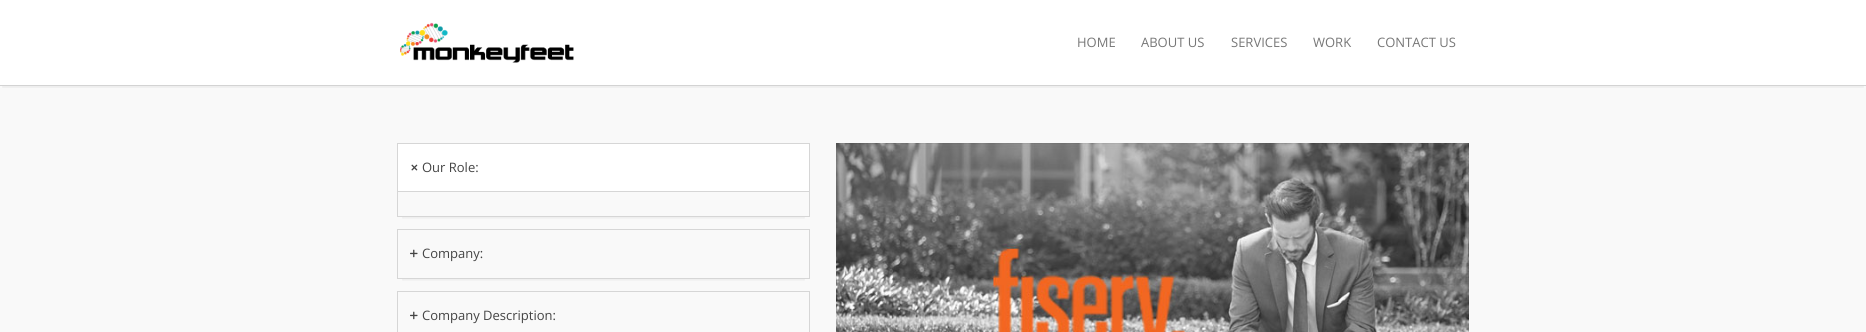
#include <cairo.h>
#include <math.h>
#include <stddef.h>


static void round_rect(cairo_t *cr, double x, double y, double w, double h, double r) {
    cairo_new_sub_path(cr);
    cairo_arc(cr, x + w - r, y + h - r, r, 0, M_PI / 2);
    cairo_arc(cr, x + r, y + h - r, r, M_PI / 2, M_PI);
    cairo_arc(cr, x + r, y + r, r, M_PI, 1.5 * M_PI);
    cairo_arc(cr, x + w - r, y + r, r, 1.5 * M_PI, 2 * M_PI);
    cairo_close_path(cr);
}

static void shadow(cairo_t *cr, double x, double y, double w, double h, double r, double blur, double alpha) {
    cairo_push_group_with_content(cr, CAIRO_CONTENT_ALPHA);
    cairo_set_operator(cr, CAIRO_OPERATOR_SOURCE);
    for (int i = 15; i >= -15 && fmin(w, h) + blur * i / 3 > 0; i -= 2) {
        double e = blur * i / 6;
        cairo_set_source_rgba(cr, 0, 0, 0, alpha * erfc((i - 1) / 8.5) / 2);
        round_rect(cr, x - e, y - e, w + 2 * e, h + 2 * e, fmax(0, fmin(r + e + blur * .6, fmin(w, h) / 2 + e)));
        cairo_fill(cr);
    }
    cairo_pattern_t *soft = cairo_pop_group(cr);
    cairo_mask(cr, soft);
    cairo_pattern_destroy(soft);
}

static void picture(cairo_t *cr, const char *path, double x, double y, double w, double h) {
    cairo_surface_t *image = cairo_image_surface_create_from_png(path);
    cairo_save(cr);
    cairo_set_source_surface(cr, image, x, y);
    cairo_rectangle(cr, x, y, w, h);
    cairo_fill(cr);
    cairo_restore(cr);
    cairo_surface_destroy(image);
}

int main(void) {
    cairo_surface_t *surface = cairo_image_surface_create(CAIRO_FORMAT_RGB24, 1866, 332);
    cairo_t *cr = cairo_create(surface);
    cairo_font_options_t *options = cairo_font_options_create();
    cairo_font_options_set_hint_metrics(options, CAIRO_HINT_METRICS_OFF);
    cairo_font_options_set_hint_style(options, CAIRO_HINT_STYLE_NONE);
    cairo_set_font_options(cr, options);
    cairo_set_miter_limit(cr, 4);
    cairo_set_source_rgb(cr, 1, 1, 1);
    cairo_paint(cr);
    cairo_set_source_rgb(cr, 0.976, 0.976, 0.976);
    cairo_rectangle(cr, 0, 86, 1866, 246);
    cairo_fill(cr);
    cairo_save(cr);
    cairo_rectangle(cr, 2, 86, 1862, 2);
    cairo_clip(cr);
    cairo_set_source_rgb(cr, 0, 0, 0);
    shadow(cr, 2, 6, 1862, 82, 0, 1, 0.05);
    cairo_restore(cr);
    cairo_set_source_rgb(cr, 0.827, 0.827, 0.827);
    cairo_rectangle(cr, 0, 85, 1866, 1);
    cairo_fill(cr);
    picture(cr, "img1.png", 400, 22, 174, 41);
    cairo_select_font_face(cr, "Open Sans", CAIRO_FONT_SLANT_NORMAL, CAIRO_FONT_WEIGHT_NORMAL);
    cairo_set_font_size(cr, 13);
    cairo_set_source_rgb(cr, 0.467, 0.467, 0.467);
    cairo_move_to(cr, 1077, 47);
    cairo_show_text(cr, "HOME");
    cairo_move_to(cr, 1141, 47);
    cairo_show_text(cr, "ABOUT US");
    cairo_move_to(cr, 1231, 47);
    cairo_show_text(cr, "SERVICES");
    cairo_move_to(cr, 1313, 47);
    cairo_show_text(cr, "WORK");
    cairo_move_to(cr, 1377, 47);
    cairo_show_text(cr, "CONTACT US");
    cairo_save(cr);
    cairo_rectangle(cr, 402, 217, 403, 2);
    cairo_clip(cr);
    cairo_set_source_rgb(cr, 0, 0, 0);
    shadow(cr, 402, 153, 403, 64, 0, 2.5, 0.1);
    cairo_restore(cr);
    cairo_set_source_rgb(cr, 1, 1, 1);
    cairo_rectangle(cr, 398, 144, 411, 47);
    cairo_fill(cr);
    cairo_set_source_rgb(cr, 0.839, 0.839, 0.839);
    cairo_rectangle(cr, 397, 143, 413, 1);
    cairo_fill(cr);
    cairo_rectangle(cr, 809, 143, 1, 74);
    cairo_fill(cr);
    cairo_rectangle(cr, 397, 143, 1, 48);
    cairo_fill(cr);
    picture(cr, "img2.png", 411, 164, 7, 7);
    cairo_set_source_rgb(cr, 0.267, 0.267, 0.267);
    cairo_move_to(cr, 422, 172);
    cairo_show_text(cr, "Our Role:");
    cairo_set_source_rgb(cr, 0.839, 0.839, 0.839);
    cairo_rectangle(cr, 397, 216, 413, 1);
    cairo_fill(cr);
    cairo_rectangle(cr, 397, 191, 1, 26);
    cairo_fill(cr);
    cairo_rectangle(cr, 398, 191, 411, 1);
    cairo_fill(cr);
    cairo_save(cr);
    cairo_rectangle(cr, 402, 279, 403, 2);
    cairo_clip(cr);
    cairo_set_source_rgb(cr, 0, 0, 0);
    shadow(cr, 402, 239, 403, 40, 0, 2.5, 0.1);
    cairo_restore(cr);
    cairo_rectangle(cr, 397, 229, 413, 1);
    cairo_fill(cr);
    cairo_rectangle(cr, 809, 229, 1, 49);
    cairo_fill(cr);
    cairo_rectangle(cr, 397, 229, 1, 49);
    cairo_fill(cr);
    picture(cr, "img3.png", 410, 249, 8, 9);
    cairo_set_source_rgb(cr, 0.267, 0.267, 0.267);
    cairo_move_to(cr, 422, 258);
    cairo_show_text(cr, "Company:");
    cairo_set_source_rgb(cr, 0.839, 0.839, 0.839);
    cairo_rectangle(cr, 397, 278, 413, 1);
    cairo_fill(cr);
    cairo_rectangle(cr, 397, 291, 413, 1);
    cairo_fill(cr);
    cairo_rectangle(cr, 809, 291, 1, 41);
    cairo_fill(cr);
    cairo_rectangle(cr, 397, 291, 1, 41);
    cairo_fill(cr);
    picture(cr, "img3.png", 410, 311, 8, 9);
    cairo_set_source_rgb(cr, 0.267, 0.267, 0.267);
    cairo_move_to(cr, 422, 320);
    cairo_show_text(cr, "Company Description:");
    picture(cr, "img4.png", 836, 143, 633, 189);
    cairo_surface_write_to_png(surface, "page.png");
    cairo_font_options_destroy(options);
    cairo_destroy(cr);
    cairo_surface_destroy(surface);
    return 0;
}
